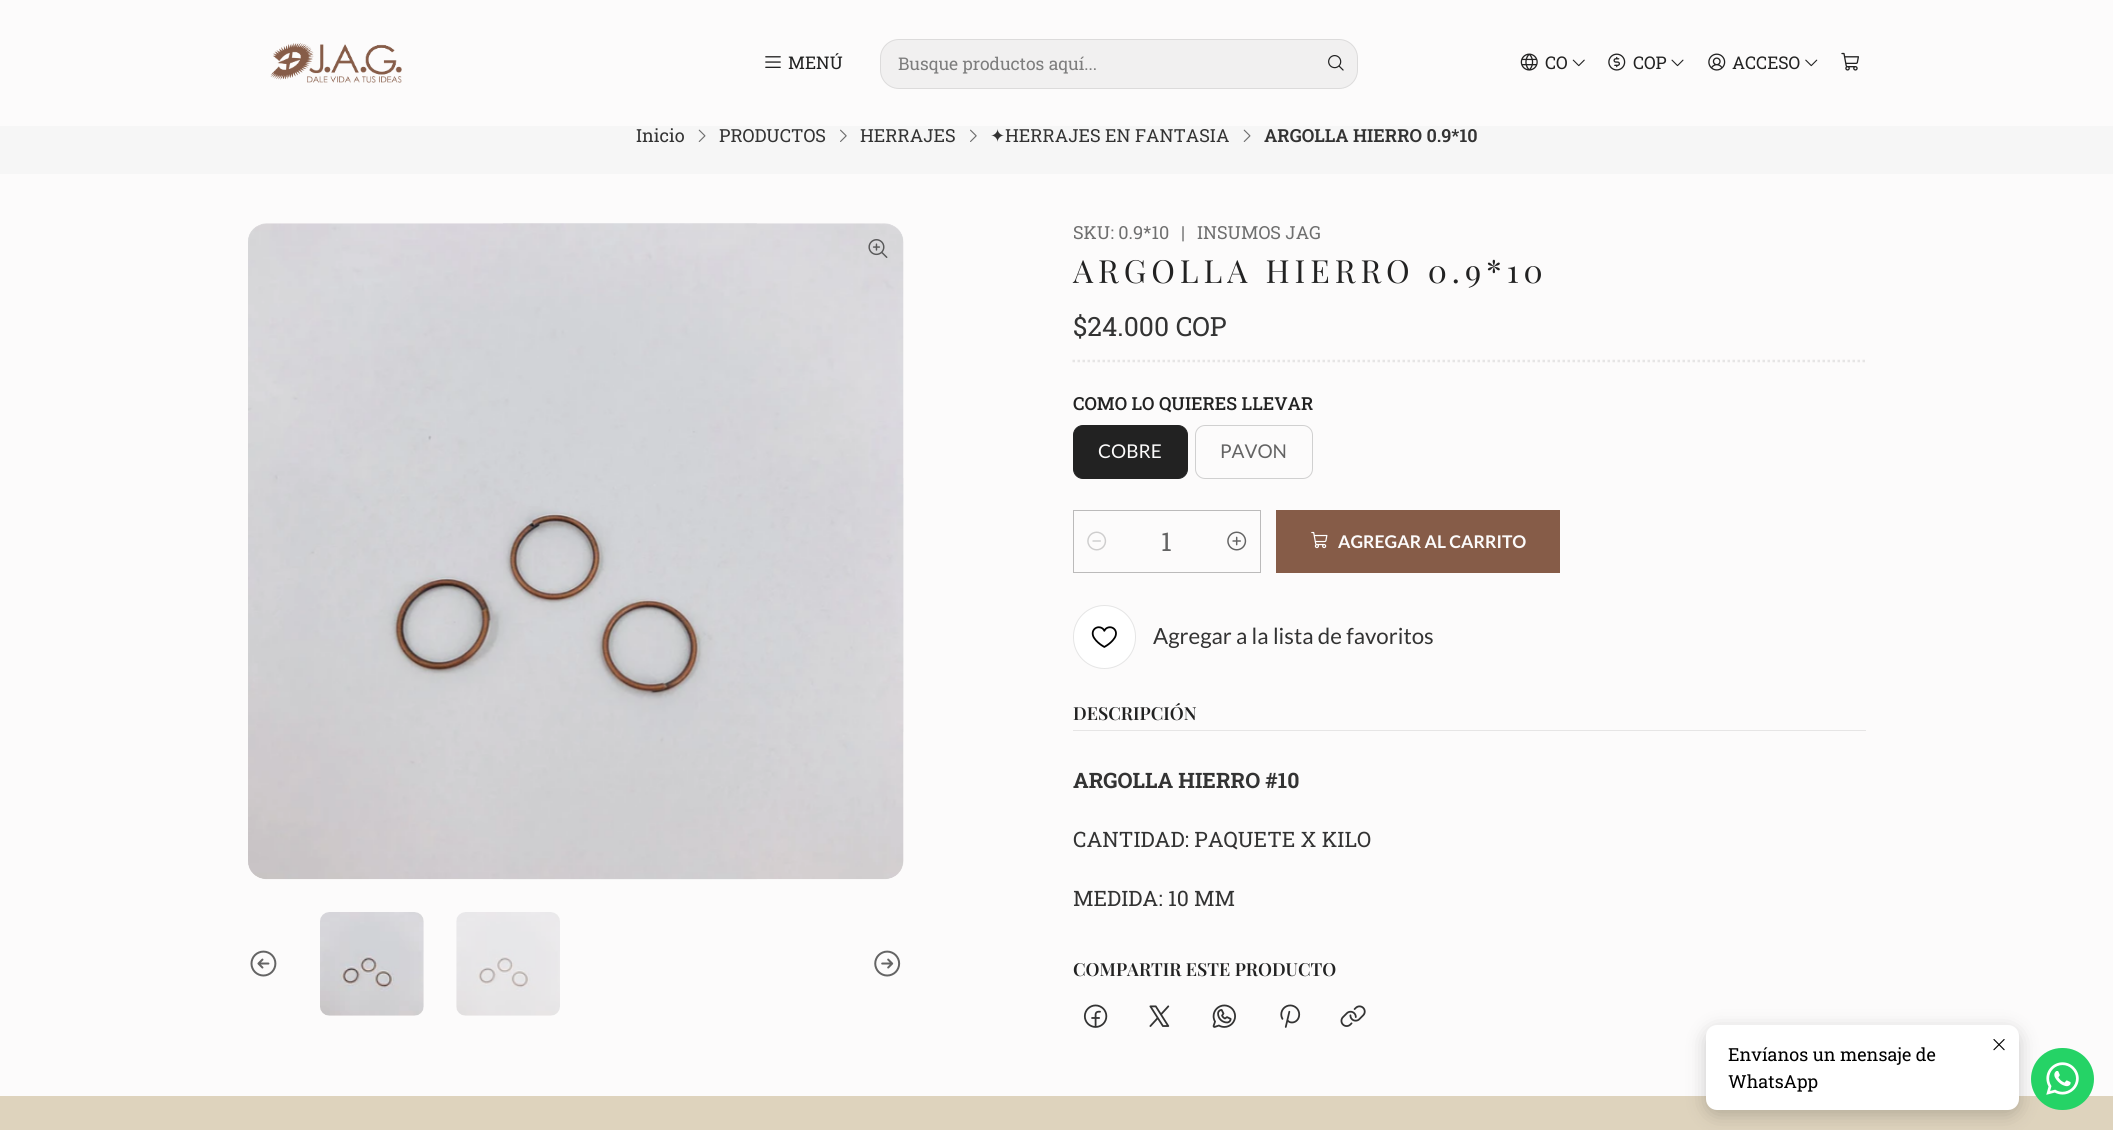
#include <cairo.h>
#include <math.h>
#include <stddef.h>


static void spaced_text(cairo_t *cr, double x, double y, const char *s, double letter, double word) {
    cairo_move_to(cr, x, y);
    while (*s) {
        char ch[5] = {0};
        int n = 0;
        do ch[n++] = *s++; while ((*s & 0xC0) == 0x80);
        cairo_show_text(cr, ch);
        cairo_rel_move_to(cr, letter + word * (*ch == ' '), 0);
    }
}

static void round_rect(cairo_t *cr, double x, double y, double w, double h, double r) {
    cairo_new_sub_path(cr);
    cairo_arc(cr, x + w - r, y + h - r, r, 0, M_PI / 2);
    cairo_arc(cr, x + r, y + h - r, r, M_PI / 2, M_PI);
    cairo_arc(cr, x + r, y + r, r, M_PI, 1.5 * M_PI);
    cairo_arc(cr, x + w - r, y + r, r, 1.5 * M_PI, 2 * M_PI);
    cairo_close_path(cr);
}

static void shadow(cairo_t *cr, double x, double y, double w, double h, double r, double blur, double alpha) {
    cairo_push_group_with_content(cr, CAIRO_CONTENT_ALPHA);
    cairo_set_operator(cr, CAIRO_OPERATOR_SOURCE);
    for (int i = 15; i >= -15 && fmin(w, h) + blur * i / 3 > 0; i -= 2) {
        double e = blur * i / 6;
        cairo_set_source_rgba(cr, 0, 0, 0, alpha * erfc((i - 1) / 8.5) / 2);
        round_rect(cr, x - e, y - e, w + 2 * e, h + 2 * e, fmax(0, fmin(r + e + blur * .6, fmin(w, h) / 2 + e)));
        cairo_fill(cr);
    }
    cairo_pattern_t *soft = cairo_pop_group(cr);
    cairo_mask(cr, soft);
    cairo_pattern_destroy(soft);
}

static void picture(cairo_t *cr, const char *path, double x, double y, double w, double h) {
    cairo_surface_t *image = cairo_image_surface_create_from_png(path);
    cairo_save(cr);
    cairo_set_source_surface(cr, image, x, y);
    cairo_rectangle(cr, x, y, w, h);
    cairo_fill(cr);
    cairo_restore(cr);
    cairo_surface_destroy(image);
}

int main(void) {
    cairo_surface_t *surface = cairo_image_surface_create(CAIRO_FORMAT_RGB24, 2113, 1130);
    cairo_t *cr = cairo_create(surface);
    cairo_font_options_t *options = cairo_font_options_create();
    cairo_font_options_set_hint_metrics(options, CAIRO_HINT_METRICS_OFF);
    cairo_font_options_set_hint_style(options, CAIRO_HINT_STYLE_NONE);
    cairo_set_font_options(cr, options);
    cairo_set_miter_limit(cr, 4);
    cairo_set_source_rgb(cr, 0.988, 0.984, 0.984);
    cairo_paint(cr);
    picture(cr, "img1.png", 270, 43, 132, 40);
    picture(cr, "img2.png", 765, 56, 16, 12);
    cairo_select_font_face(cr, "Roboto Slab", CAIRO_FONT_SLANT_NORMAL, CAIRO_FONT_WEIGHT_NORMAL);
    cairo_set_font_size(cr, 17.5);
    cairo_set_source_rgb(cr, 0.133, 0.133, 0.133);
    cairo_move_to(cr, 788, 69);
    cairo_show_text(cr, "MENÚ");
    cairo_set_source_rgb(cr, 0.945, 0.941, 0.941);
    round_rect(cr, 880, 39, 478, 50, 19);
    cairo_fill(cr);
    round_rect(cr, 880.5, 39.5, 477, 49, 18.5);
    cairo_set_source_rgba(cr, 0.133, 0.133, 0.133, 0.1);
    cairo_set_line_width(cr, 1);
    cairo_stroke(cr);
    cairo_set_source_rgb(cr, 0.49, 0.49, 0.49);
    cairo_move_to(cr, 898, 70);
    cairo_show_text(cr, "Busque productos aquí...");
    picture(cr, "img3.png", 1328, 55, 16, 16);
    picture(cr, "img4.png", 1520, 53, 18, 18);
    cairo_set_source_rgb(cr, 0.133, 0.133, 0.133);
    cairo_move_to(cr, 1545, 69);
    cairo_show_text(cr, "CO");
    picture(cr, "img5.png", 1572, 59, 13, 8);
    picture(cr, "img6.png", 1608, 53, 18, 18);
    cairo_move_to(cr, 1633, 69);
    cairo_show_text(cr, "COP");
    picture(cr, "img7.png", 1671, 59, 13, 8);
    picture(cr, "img8.png", 1708, 53, 18, 18);
    cairo_move_to(cr, 1732, 69);
    cairo_show_text(cr, "ACCESO");
    picture(cr, "img9.png", 1805, 59, 13, 8);
    picture(cr, "img10.png", 1841, 52, 18, 19);
    cairo_set_source_rgb(cr, 0.961, 0.961, 0.961);
    cairo_rectangle(cr, 0, 126, 2113, 48);
    cairo_fill(cr);
    cairo_set_font_size(cr, 18);
    cairo_set_source_rgb(cr, 0.2, 0.2, 0.2);
    cairo_move_to(cr, 636, 142);
    cairo_show_text(cr, "Inicio");
    picture(cr, "img11.png", 698, 129, 8, 13);
    cairo_move_to(cr, 719, 142);
    cairo_show_text(cr, "PRODUCTOS");
    picture(cr, "img12.png", 840, 129, 7, 13);
    cairo_move_to(cr, 860, 142);
    cairo_show_text(cr, "HERRAJES");
    picture(cr, "img12.png", 970, 129, 7, 13);
    cairo_select_font_face(cr, "DejaVu Sans", CAIRO_FONT_SLANT_NORMAL, CAIRO_FONT_WEIGHT_NORMAL);
    cairo_move_to(cr, 990, 142);
    cairo_show_text(cr, "✦");
    cairo_select_font_face(cr, "Roboto Slab", CAIRO_FONT_SLANT_NORMAL, CAIRO_FONT_WEIGHT_NORMAL);
    cairo_move_to(cr, 1005, 142);
    cairo_show_text(cr, "HERRAJES EN FANTASIA");
    picture(cr, "img11.png", 1243, 129, 8, 13);
    cairo_select_font_face(cr, "Roboto Slab SemiBold", CAIRO_FONT_SLANT_NORMAL, CAIRO_FONT_WEIGHT_NORMAL);
    cairo_move_to(cr, 1264, 142);
    cairo_show_text(cr, "ARGOLLA HIERRO 0.9*10");
    picture(cr, "img13.png", 248, 223, 656, 657);
    picture(cr, "img14.png", 868, 239, 20, 19);
    picture(cr, "img15.png", 250, 950, 27, 27);
    picture(cr, "img16.png", 320, 912, 104, 104);
    picture(cr, "img17.png", 456, 912, 104, 104);
    picture(cr, "img18.png", 874, 950, 27, 27);
    cairo_select_font_face(cr, "Roboto Slab", CAIRO_FONT_SLANT_NORMAL, CAIRO_FONT_WEIGHT_NORMAL);
    cairo_set_source_rgb(cr, 0.435, 0.435, 0.435);
    cairo_move_to(cr, 1073, 239);
    cairo_show_text(cr, "SKU: 0.9*10");
    cairo_move_to(cr, 1181, 239);
    cairo_show_text(cr, "|");
    cairo_move_to(cr, 1197, 239);
    cairo_show_text(cr, "INSUMOS JAG");
    cairo_select_font_face(cr, "Playfair Display", CAIRO_FONT_SLANT_NORMAL, CAIRO_FONT_WEIGHT_NORMAL);
    cairo_set_font_size(cr, 31.9);
    cairo_set_source_rgb(cr, 0.133, 0.133, 0.133);
    spaced_text(cr, 1073, 283, "ARGOLLA HIERRO 0.9*10", 5, 0);
    cairo_select_font_face(cr, "Roboto Slab", CAIRO_FONT_SLANT_NORMAL, CAIRO_FONT_WEIGHT_NORMAL);
    cairo_set_font_size(cr, 26.5);
    cairo_set_source_rgb(cr, 0.2, 0.2, 0.2);
    cairo_move_to(cr, 1073, 336);
    cairo_show_text(cr, "$24.000 COP");
    cairo_new_path(cr);
    cairo_move_to(cr, 1072.5, 361);
    cairo_line_to(cr, 1866, 361);
    cairo_set_source_rgb(cr, 0.902, 0.898, 0.898);
    cairo_set_line_width(cr, 2.5);
    cairo_set_dash(cr, (double[]){2.5, 2.5}, 2, 0);
    cairo_stroke(cr);
    cairo_select_font_face(cr, "Roboto Slab Medium", CAIRO_FONT_SLANT_NORMAL, CAIRO_FONT_WEIGHT_NORMAL);
    cairo_set_font_size(cr, 18);
    cairo_set_source_rgb(cr, 0.133, 0.133, 0.133);
    cairo_move_to(cr, 1073, 410);
    cairo_show_text(cr, "COMO LO QUIERES LLEVAR");
    round_rect(cr, 1073.5, 425.5, 114, 53, 9.5);
    cairo_fill_preserve(cr);
    cairo_set_line_width(cr, 1);
    cairo_set_dash(cr, NULL, 0, 0);
    cairo_stroke(cr);
    cairo_select_font_face(cr, "Lato", CAIRO_FONT_SLANT_NORMAL, CAIRO_FONT_WEIGHT_NORMAL);
    cairo_set_font_size(cr, 19);
    cairo_set_source_rgb(cr, 0.988, 0.984, 0.984);
    cairo_move_to(cr, 1098, 458);
    cairo_show_text(cr, "COBRE");
    round_rect(cr, 1195.5, 425.5, 117, 53, 9.5);
    cairo_set_source_rgb(cr, 0.816, 0.816, 0.816);
    cairo_stroke(cr);
    cairo_set_source_rgb(cr, 0.388, 0.388, 0.388);
    cairo_move_to(cr, 1220, 458);
    cairo_show_text(cr, "PAVON");
    cairo_rectangle(cr, 1073.5, 510.5, 187, 62);
    cairo_set_source_rgb(cr, 0.733, 0.729, 0.729);
    cairo_stroke(cr);
    picture(cr, "img19.png", 1087, 531, 20, 20);
    cairo_select_font_face(cr, "Roboto Slab", CAIRO_FONT_SLANT_NORMAL, CAIRO_FONT_WEIGHT_NORMAL);
    cairo_set_font_size(cr, 26);
    cairo_set_source_rgb(cr, 0.388, 0.388, 0.388);
    cairo_move_to(cr, 1161, 551);
    cairo_show_text(cr, "1");
    picture(cr, "img20.png", 1227, 531, 20, 20);
    cairo_set_source_rgb(cr, 0.525, 0.361, 0.282);
    cairo_rectangle(cr, 1276, 510, 284, 63);
    cairo_fill(cr);
    picture(cr, "img21.png", 1311, 531, 17, 18);
    cairo_select_font_face(cr, "Lato", CAIRO_FONT_SLANT_NORMAL, CAIRO_FONT_WEIGHT_BOLD);
    cairo_set_font_size(cr, 17.5);
    cairo_set_source_rgb(cr, 0.988, 0.984, 0.984);
    cairo_move_to(cr, 1338, 548);
    cairo_show_text(cr, "AGREGAR AL CARRITO");
    cairo_set_source_rgb(cr, 1, 1, 1);
    round_rect(cr, 1073.5, 605.5, 62, 63, 31);
    cairo_fill_preserve(cr);
    cairo_set_source_rgb(cr, 0.898, 0.898, 0.898);
    cairo_stroke(cr);
    picture(cr, "img22.png", 1091, 626, 26, 22);
    cairo_select_font_face(cr, "Lato", CAIRO_FONT_SLANT_NORMAL, CAIRO_FONT_WEIGHT_NORMAL);
    cairo_set_font_size(cr, 22.25);
    cairo_set_source_rgb(cr, 0.2, 0.2, 0.2);
    cairo_move_to(cr, 1153, 644);
    cairo_show_text(cr, "Agregar a la lista de favoritos");
    cairo_set_source_rgb(cr, 0.902, 0.898, 0.898);
    cairo_rectangle(cr, 1073, 730, 793, 1);
    cairo_fill(cr);
    cairo_select_font_face(cr, "Playfair Display SemiBold", CAIRO_FONT_SLANT_NORMAL, CAIRO_FONT_WEIGHT_NORMAL);
    cairo_set_font_size(cr, 18);
    cairo_set_source_rgb(cr, 0.133, 0.133, 0.133);
    cairo_move_to(cr, 1073, 720);
    cairo_show_text(cr, "DESCRIPCIÓN");
    cairo_select_font_face(cr, "Roboto Slab", CAIRO_FONT_SLANT_NORMAL, CAIRO_FONT_WEIGHT_BOLD);
    cairo_set_font_size(cr, 21.25);
    cairo_set_source_rgb(cr, 0.2, 0.2, 0.2);
    cairo_move_to(cr, 1073, 788);
    cairo_show_text(cr, "ARGOLLA HIERRO #10");
    cairo_select_font_face(cr, "Roboto Slab", CAIRO_FONT_SLANT_NORMAL, CAIRO_FONT_WEIGHT_NORMAL);
    cairo_move_to(cr, 1073, 847);
    cairo_show_text(cr, "CANTIDAD: PAQUETE X KILO");
    cairo_move_to(cr, 1073, 906);
    cairo_show_text(cr, "MEDIDA: 10 MM");
    cairo_select_font_face(cr, "Playfair Display SemiBold", CAIRO_FONT_SLANT_NORMAL, CAIRO_FONT_WEIGHT_NORMAL);
    cairo_set_font_size(cr, 18);
    cairo_set_source_rgb(cr, 0.133, 0.133, 0.133);
    cairo_move_to(cr, 1073, 976);
    cairo_show_text(cr, "COMPARTIR ESTE PRODUCTO");
    picture(cr, "img23.png", 1083, 1004, 25, 24);
    picture(cr, "img24.png", 1149, 1005, 21, 22);
    picture(cr, "img25.png", 1212, 1004, 24, 24);
    picture(cr, "img26.png", 1280, 1004, 21, 24);
    picture(cr, "img27.png", 1340, 1005, 26, 22);
    cairo_set_source_rgb(cr, 0.871, 0.827, 0.741);
    cairo_rectangle(cr, 0, 1096, 2113, 34);
    cairo_fill(cr);
    cairo_set_source_rgb(cr, 0, 0, 0);
    shadow(cr, 1706, 1030, 313, 85, 11, 9.5, 0.2);
    cairo_set_source_rgb(cr, 1, 1, 1);
    round_rect(cr, 1706, 1025, 313, 85, 11);
    cairo_fill(cr);
    picture(cr, "img28.png", 1993, 1039, 12, 12);
    cairo_select_font_face(cr, "Roboto Slab", CAIRO_FONT_SLANT_NORMAL, CAIRO_FONT_WEIGHT_NORMAL);
    cairo_set_source_rgb(cr, 0, 0, 0);
    cairo_move_to(cr, 1728, 1061);
    cairo_show_text(cr, "Envíanos un mensaje de");
    cairo_move_to(cr, 1728, 1088);
    cairo_show_text(cr, "WhatsApp");
    cairo_set_source_rgb(cr, 0.145, 0.827, 0.4);
    round_rect(cr, 2031, 1048, 63, 62, 31);
    cairo_fill(cr);
    picture(cr, "img29.png", 2046, 1062, 33, 33);
    cairo_surface_write_to_png(surface, "page.png");
    cairo_font_options_destroy(options);
    cairo_destroy(cr);
    cairo_surface_destroy(surface);
    return 0;
}
